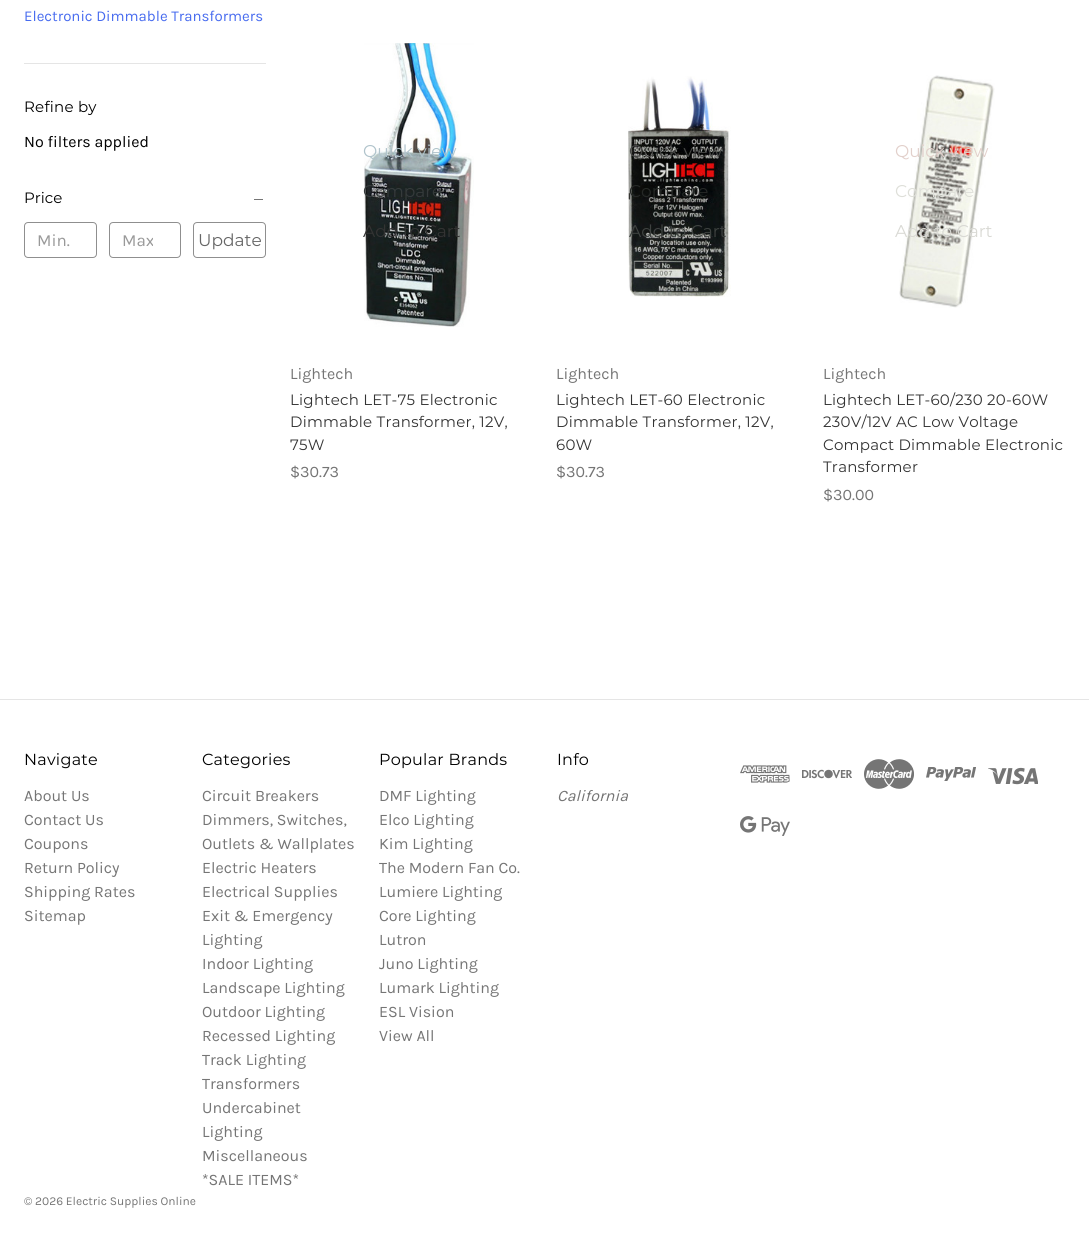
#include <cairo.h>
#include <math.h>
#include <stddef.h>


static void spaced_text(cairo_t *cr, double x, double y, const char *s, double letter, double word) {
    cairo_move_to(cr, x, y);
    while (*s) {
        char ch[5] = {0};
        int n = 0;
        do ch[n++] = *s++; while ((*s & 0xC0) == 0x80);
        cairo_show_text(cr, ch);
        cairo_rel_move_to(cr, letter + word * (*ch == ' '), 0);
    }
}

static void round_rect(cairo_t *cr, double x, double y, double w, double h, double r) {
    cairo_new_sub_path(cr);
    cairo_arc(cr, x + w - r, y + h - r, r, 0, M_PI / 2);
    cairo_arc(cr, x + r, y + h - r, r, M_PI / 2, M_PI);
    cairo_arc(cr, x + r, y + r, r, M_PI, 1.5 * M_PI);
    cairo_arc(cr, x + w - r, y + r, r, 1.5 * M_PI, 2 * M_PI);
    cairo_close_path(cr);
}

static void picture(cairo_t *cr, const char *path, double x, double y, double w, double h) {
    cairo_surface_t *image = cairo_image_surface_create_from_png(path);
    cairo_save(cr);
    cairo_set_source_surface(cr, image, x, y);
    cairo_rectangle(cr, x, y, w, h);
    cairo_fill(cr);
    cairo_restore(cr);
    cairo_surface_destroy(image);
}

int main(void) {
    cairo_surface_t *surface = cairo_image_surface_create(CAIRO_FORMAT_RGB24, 1089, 1258);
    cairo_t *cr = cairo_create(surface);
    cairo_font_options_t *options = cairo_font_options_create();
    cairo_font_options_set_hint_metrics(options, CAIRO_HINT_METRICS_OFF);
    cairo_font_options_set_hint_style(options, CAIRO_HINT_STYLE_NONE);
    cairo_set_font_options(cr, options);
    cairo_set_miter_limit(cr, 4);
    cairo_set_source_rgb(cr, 1, 1, 1);
    cairo_paint(cr);
    cairo_select_font_face(cr, "Karla", CAIRO_FONT_SLANT_NORMAL, CAIRO_FONT_WEIGHT_NORMAL);
    cairo_set_font_size(cr, 15);
    cairo_set_source_rgb(cr, 0.278, 0.42, 0.937);
    cairo_move_to(cr, 24, 21);
    cairo_show_text(cr, "Electronic Dimmable Transformers");
    cairo_set_source_rgb(cr, 0.898, 0.898, 0.898);
    cairo_rectangle(cr, 24, 63, 242, 1);
    cairo_fill(cr);
    cairo_select_font_face(cr, "Montserrat", CAIRO_FONT_SLANT_NORMAL, CAIRO_FONT_WEIGHT_NORMAL);
    cairo_set_source_rgb(cr, 0, 0, 0);
    spaced_text(cr, 24, 112, "Refine by", 0.25, 0);
    cairo_select_font_face(cr, "Karla", CAIRO_FONT_SLANT_NORMAL, CAIRO_FONT_WEIGHT_NORMAL);
    cairo_set_font_size(cr, 16);
    cairo_move_to(cr, 24, 147);
    cairo_show_text(cr, "No filters applied");
    cairo_select_font_face(cr, "Montserrat", CAIRO_FONT_SLANT_NORMAL, CAIRO_FONT_WEIGHT_NORMAL);
    cairo_set_font_size(cr, 15);
    cairo_move_to(cr, 24, 203);
    cairo_show_text(cr, "Price");
    cairo_set_source_rgb(cr, 0.459, 0.459, 0.459);
    cairo_rectangle(cr, 254, 199, 9, 1);
    cairo_fill(cr);
    round_rect(cr, 24.5, 222.5, 72, 35, 3.5);
    cairo_set_source_rgb(cr, 0.561, 0.561, 0.561);
    cairo_set_line_width(cr, 1);
    cairo_stroke(cr);
    cairo_select_font_face(cr, "Karla", CAIRO_FONT_SLANT_NORMAL, CAIRO_FONT_WEIGHT_NORMAL);
    cairo_set_font_size(cr, 17);
    cairo_set_source_rgb(cr, 0.6, 0.6, 0.6);
    cairo_move_to(cr, 37, 246);
    cairo_show_text(cr, "Min.");
    round_rect(cr, 109.5, 222.5, 71, 35, 3.5);
    cairo_set_source_rgb(cr, 0.561, 0.561, 0.561);
    cairo_stroke(cr);
    cairo_save(cr);
    cairo_rectangle(cr, 122, 230, 31, 20);
    cairo_clip(cr);
    cairo_set_source_rgb(cr, 0.6, 0.6, 0.6);
    cairo_move_to(cr, 122, 246);
    cairo_show_text(cr, "Max");
    cairo_restore(cr);
    round_rect(cr, 193.5, 222.5, 72, 35, 3.5);
    cairo_stroke(cr);
    cairo_select_font_face(cr, "Montserrat", CAIRO_FONT_SLANT_NORMAL, CAIRO_FONT_WEIGHT_NORMAL);
    cairo_set_source_rgb(cr, 0.4, 0.4, 0.4);
    cairo_move_to(cr, 198, 246);
    cairo_show_text(cr, "Update");
    picture(cr, "img1.png", 364, 43, 110, 284);
    cairo_set_source_rgb(cr, 0.69, 0.765, 0.796);
    cairo_move_to(cr, 363, 157);
    cairo_show_text(cr, "Quick view");
    cairo_set_source_rgb(cr, 0.208, 0.227, 0.231);
    cairo_move_to(cr, 363, 197);
    cairo_show_text(cr, "Compare");
    cairo_set_source_rgb(cr, 0.2, 0.2, 0.2);
    cairo_move_to(cr, 363, 237);
    cairo_show_text(cr, "Add to Cart");
    cairo_select_font_face(cr, "Karla", CAIRO_FONT_SLANT_NORMAL, CAIRO_FONT_WEIGHT_NORMAL);
    cairo_set_font_size(cr, 16);
    cairo_set_source_rgb(cr, 0.459, 0.459, 0.459);
    cairo_move_to(cr, 290, 379);
    cairo_show_text(cr, "Lightech");
    cairo_select_font_face(cr, "Montserrat", CAIRO_FONT_SLANT_NORMAL, CAIRO_FONT_WEIGHT_NORMAL);
    cairo_set_font_size(cr, 15);
    cairo_set_source_rgb(cr, 0.2, 0.2, 0.2);
    spaced_text(cr, 290, 405, "Lightech LET-75 Electronic", 0.25, 0);
    spaced_text(cr, 290, 427, "Dimmable Transformer, 12V,", 0.25, 0);
    spaced_text(cr, 290, 450, "75W", 0.25, 0);
    cairo_select_font_face(cr, "Karla", CAIRO_FONT_SLANT_NORMAL, CAIRO_FONT_WEIGHT_NORMAL);
    cairo_set_font_size(cr, 16);
    cairo_set_source_rgb(cr, 0.459, 0.459, 0.459);
    cairo_move_to(cr, 290, 477);
    cairo_show_text(cr, "$30.73");
    picture(cr, "img2.png", 628, 76, 103, 221);
    cairo_select_font_face(cr, "Montserrat", CAIRO_FONT_SLANT_NORMAL, CAIRO_FONT_WEIGHT_NORMAL);
    cairo_set_font_size(cr, 17);
    cairo_set_source_rgb(cr, 0.275, 0.278, 0.271);
    cairo_move_to(cr, 629, 157);
    cairo_show_text(cr, "Quick view");
    cairo_set_source_rgb(cr, 0.145, 0.157, 0.149);
    cairo_move_to(cr, 629, 197);
    cairo_show_text(cr, "Compare");
    cairo_set_source_rgb(cr, 0.243, 0.259, 0.251);
    cairo_move_to(cr, 629, 237);
    cairo_show_text(cr, "Add to Cart");
    cairo_select_font_face(cr, "Karla", CAIRO_FONT_SLANT_NORMAL, CAIRO_FONT_WEIGHT_NORMAL);
    cairo_set_font_size(cr, 16);
    cairo_set_source_rgb(cr, 0.459, 0.459, 0.459);
    cairo_move_to(cr, 556, 379);
    cairo_show_text(cr, "Lightech");
    cairo_select_font_face(cr, "Montserrat", CAIRO_FONT_SLANT_NORMAL, CAIRO_FONT_WEIGHT_NORMAL);
    cairo_set_font_size(cr, 15);
    cairo_set_source_rgb(cr, 0.2, 0.2, 0.2);
    spaced_text(cr, 556, 405, "Lightech LET-60 Electronic", 0.25, 0);
    spaced_text(cr, 556, 427, "Dimmable Transformer, 12V,", 0.25, 0);
    spaced_text(cr, 556, 450, "60W", 0.25, 0);
    cairo_select_font_face(cr, "Karla", CAIRO_FONT_SLANT_NORMAL, CAIRO_FONT_WEIGHT_NORMAL);
    cairo_set_font_size(cr, 16);
    cairo_set_source_rgb(cr, 0.459, 0.459, 0.459);
    cairo_move_to(cr, 556, 477);
    cairo_show_text(cr, "$30.73");
    picture(cr, "img3.png", 899, 75, 96, 233);
    cairo_select_font_face(cr, "Montserrat", CAIRO_FONT_SLANT_NORMAL, CAIRO_FONT_WEIGHT_NORMAL);
    cairo_set_font_size(cr, 17);
    cairo_set_source_rgb(cr, 0.886, 0.816, 0.796);
    cairo_move_to(cr, 895, 157);
    cairo_show_text(cr, "Quick view");
    cairo_set_source_rgb(cr, 0.871, 0.875, 0.851);
    cairo_move_to(cr, 895, 197);
    cairo_show_text(cr, "Compare");
    cairo_set_source_rgb(cr, 0.851, 0.851, 0.831);
    cairo_move_to(cr, 895, 237);
    cairo_show_text(cr, "Add to Cart");
    cairo_select_font_face(cr, "Karla", CAIRO_FONT_SLANT_NORMAL, CAIRO_FONT_WEIGHT_NORMAL);
    cairo_set_font_size(cr, 16);
    cairo_set_source_rgb(cr, 0.459, 0.459, 0.459);
    cairo_move_to(cr, 823, 379);
    cairo_show_text(cr, "Lightech");
    cairo_select_font_face(cr, "Montserrat", CAIRO_FONT_SLANT_NORMAL, CAIRO_FONT_WEIGHT_NORMAL);
    cairo_set_font_size(cr, 15);
    cairo_set_source_rgb(cr, 0.2, 0.2, 0.2);
    spaced_text(cr, 823, 405, "Lightech LET-60/230 20-60W", 0.25, 0);
    spaced_text(cr, 823, 427, "230V/12V AC Low Voltage", 0.25, 0);
    spaced_text(cr, 823, 450, "Compact Dimmable Electronic", 0.25, 0);
    spaced_text(cr, 823, 472, "Transformer", 0.25, 0);
    cairo_select_font_face(cr, "Karla", CAIRO_FONT_SLANT_NORMAL, CAIRO_FONT_WEIGHT_NORMAL);
    cairo_set_font_size(cr, 16);
    cairo_set_source_rgb(cr, 0.459, 0.459, 0.459);
    cairo_move_to(cr, 823, 500);
    cairo_show_text(cr, "$30.00");
    cairo_set_source_rgb(cr, 0.898, 0.898, 0.898);
    cairo_rectangle(cr, 0, 699, 1089, 1);
    cairo_fill(cr);
    cairo_select_font_face(cr, "Montserrat", CAIRO_FONT_SLANT_NORMAL, CAIRO_FONT_WEIGHT_NORMAL);
    cairo_set_source_rgb(cr, 0, 0, 0);
    spaced_text(cr, 24, 765, "Navigate", 0.25, 0);
    cairo_select_font_face(cr, "Karla", CAIRO_FONT_SLANT_NORMAL, CAIRO_FONT_WEIGHT_NORMAL);
    cairo_set_source_rgb(cr, 0.459, 0.459, 0.459);
    cairo_move_to(cr, 24, 801);
    cairo_show_text(cr, "About Us");
    cairo_move_to(cr, 24, 825);
    cairo_show_text(cr, "Contact Us");
    cairo_move_to(cr, 24, 849);
    cairo_show_text(cr, "Coupons");
    cairo_move_to(cr, 24, 873);
    cairo_show_text(cr, "Return Policy");
    cairo_move_to(cr, 24, 897);
    cairo_show_text(cr, "Shipping Rates");
    cairo_move_to(cr, 24, 921);
    cairo_show_text(cr, "Sitemap");
    cairo_select_font_face(cr, "Montserrat", CAIRO_FONT_SLANT_NORMAL, CAIRO_FONT_WEIGHT_NORMAL);
    cairo_set_source_rgb(cr, 0, 0, 0);
    spaced_text(cr, 202, 765, "Categories", 0.25, 0);
    cairo_select_font_face(cr, "Karla", CAIRO_FONT_SLANT_NORMAL, CAIRO_FONT_WEIGHT_NORMAL);
    cairo_set_source_rgb(cr, 0.459, 0.459, 0.459);
    cairo_move_to(cr, 202, 801);
    cairo_show_text(cr, "Circuit Breakers");
    cairo_move_to(cr, 202, 825);
    cairo_show_text(cr, "Dimmers, Switches,");
    cairo_move_to(cr, 202, 849);
    cairo_show_text(cr, "Outlets & Wallplates");
    cairo_move_to(cr, 202, 873);
    cairo_show_text(cr, "Electric Heaters");
    cairo_move_to(cr, 202, 897);
    cairo_show_text(cr, "Electrical Supplies");
    cairo_move_to(cr, 202, 921);
    cairo_show_text(cr, "Exit & Emergency");
    cairo_move_to(cr, 202, 945);
    cairo_show_text(cr, "Lighting");
    cairo_move_to(cr, 202, 969);
    cairo_show_text(cr, "Indoor Lighting");
    cairo_move_to(cr, 202, 993);
    cairo_show_text(cr, "Landscape Lighting");
    cairo_move_to(cr, 202, 1017);
    cairo_show_text(cr, "Outdoor Lighting");
    cairo_move_to(cr, 202, 1041);
    cairo_show_text(cr, "Recessed Lighting");
    cairo_move_to(cr, 202, 1065);
    cairo_show_text(cr, "Track Lighting");
    cairo_move_to(cr, 202, 1089);
    cairo_show_text(cr, "Transformers");
    cairo_move_to(cr, 202, 1113);
    cairo_show_text(cr, "Undercabinet");
    cairo_move_to(cr, 202, 1137);
    cairo_show_text(cr, "Lighting");
    cairo_move_to(cr, 202, 1161);
    cairo_show_text(cr, "Miscellaneous");
    cairo_move_to(cr, 202, 1185);
    cairo_show_text(cr, "*SALE ITEMS*");
    cairo_select_font_face(cr, "Montserrat", CAIRO_FONT_SLANT_NORMAL, CAIRO_FONT_WEIGHT_NORMAL);
    cairo_set_source_rgb(cr, 0, 0, 0);
    spaced_text(cr, 379, 765, "Popular Brands", 0.25, 0);
    cairo_select_font_face(cr, "Karla", CAIRO_FONT_SLANT_NORMAL, CAIRO_FONT_WEIGHT_NORMAL);
    cairo_set_source_rgb(cr, 0.459, 0.459, 0.459);
    cairo_move_to(cr, 379, 801);
    cairo_show_text(cr, "DMF Lighting");
    cairo_move_to(cr, 379, 825);
    cairo_show_text(cr, "Elco Lighting");
    cairo_move_to(cr, 379, 849);
    cairo_show_text(cr, "Kim Lighting");
    cairo_move_to(cr, 379, 873);
    cairo_show_text(cr, "The Modern Fan Co.");
    cairo_move_to(cr, 379, 897);
    cairo_show_text(cr, "Lumiere Lighting");
    cairo_move_to(cr, 379, 921);
    cairo_show_text(cr, "Core Lighting");
    cairo_move_to(cr, 379, 945);
    cairo_show_text(cr, "Lutron");
    cairo_move_to(cr, 379, 969);
    cairo_show_text(cr, "Juno Lighting");
    cairo_move_to(cr, 379, 993);
    cairo_show_text(cr, "Lumark Lighting");
    cairo_move_to(cr, 379, 1017);
    cairo_show_text(cr, "ESL Vision");
    cairo_move_to(cr, 379, 1041);
    cairo_show_text(cr, "View All");
    cairo_select_font_face(cr, "Montserrat", CAIRO_FONT_SLANT_NORMAL, CAIRO_FONT_WEIGHT_NORMAL);
    cairo_set_source_rgb(cr, 0, 0, 0);
    spaced_text(cr, 557, 765, "Info", 0.25, 0);
    cairo_select_font_face(cr, "Karla", CAIRO_FONT_SLANT_ITALIC, CAIRO_FONT_WEIGHT_NORMAL);
    cairo_set_source_rgb(cr, 0.459, 0.459, 0.459);
    cairo_move_to(cr, 557, 801);
    cairo_show_text(cr, "California");
    picture(cr, "img4.png", 740, 765, 50, 18);
    picture(cr, "img5.png", 802, 769, 50, 10);
    picture(cr, "img6.png", 864, 759, 50, 30);
    picture(cr, "img7.png", 926, 767, 50, 14);
    picture(cr, "img8.png", 988, 767, 50, 18);
    picture(cr, "img9.png", 740, 816, 50, 20);
    cairo_select_font_face(cr, "Karla", CAIRO_FONT_SLANT_NORMAL, CAIRO_FONT_WEIGHT_NORMAL);
    cairo_set_font_size(cr, 12);
    cairo_move_to(cr, 24, 1205);
    cairo_show_text(cr, "© 2026 Electric Supplies Online");
    cairo_surface_write_to_png(surface, "page.png");
    cairo_font_options_destroy(options);
    cairo_destroy(cr);
    cairo_surface_destroy(surface);
    return 0;
}
